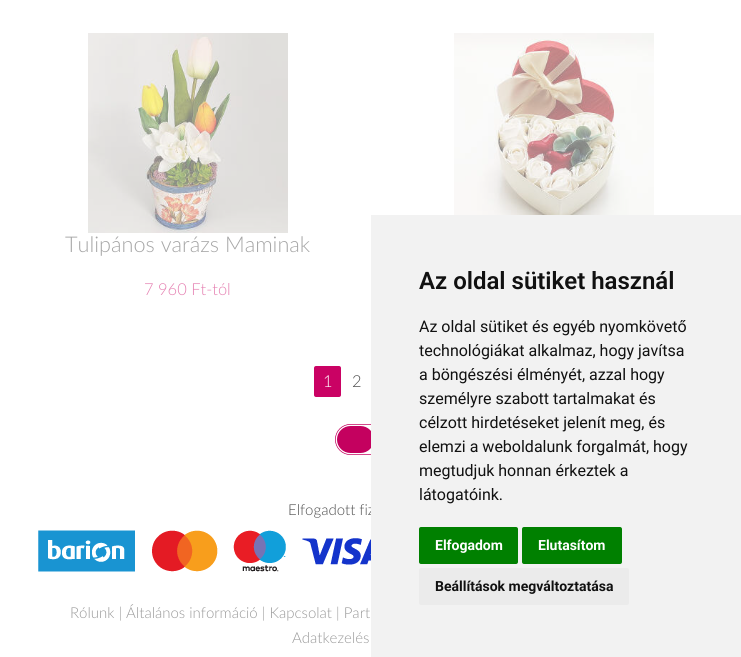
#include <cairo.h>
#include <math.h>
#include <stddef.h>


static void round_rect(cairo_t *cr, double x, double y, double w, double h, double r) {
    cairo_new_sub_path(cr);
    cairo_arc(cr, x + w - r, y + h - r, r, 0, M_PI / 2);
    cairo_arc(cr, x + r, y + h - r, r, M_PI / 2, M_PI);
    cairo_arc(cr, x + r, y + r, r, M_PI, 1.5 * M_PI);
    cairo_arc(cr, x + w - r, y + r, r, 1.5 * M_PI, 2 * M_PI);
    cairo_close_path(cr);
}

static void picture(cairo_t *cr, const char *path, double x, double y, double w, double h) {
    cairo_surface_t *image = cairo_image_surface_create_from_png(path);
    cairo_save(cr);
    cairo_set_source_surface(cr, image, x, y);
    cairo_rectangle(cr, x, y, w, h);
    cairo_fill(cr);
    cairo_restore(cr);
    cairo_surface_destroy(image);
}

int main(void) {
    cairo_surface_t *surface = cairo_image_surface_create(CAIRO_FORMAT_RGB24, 741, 657);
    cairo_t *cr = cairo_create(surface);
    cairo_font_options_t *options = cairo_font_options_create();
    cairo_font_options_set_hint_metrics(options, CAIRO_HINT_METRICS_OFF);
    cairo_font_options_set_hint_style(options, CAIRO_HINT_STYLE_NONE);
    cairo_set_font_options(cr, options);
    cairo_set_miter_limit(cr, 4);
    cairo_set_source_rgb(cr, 1, 1, 1);
    cairo_paint(cr);
    picture(cr, "img1.png", 454, 33, 200, 182);
    picture(cr, "img2.png", 88, 33, 200, 200);
    cairo_select_font_face(cr, "Lato Light", CAIRO_FONT_SLANT_NORMAL, CAIRO_FONT_WEIGHT_NORMAL);
    cairo_set_font_size(cr, 21.7);
    cairo_set_source_rgb(cr, 0.651, 0.651, 0.651);
    cairo_move_to(cr, 65, 252);
    cairo_show_text(cr, "Tulipános varázs Maminak");
    cairo_set_font_size(cr, 16.5);
    cairo_set_source_rgb(cr, 0.898, 0.506, 0.698);
    cairo_move_to(cr, 144, 295);
    cairo_show_text(cr, "7 960 Ft-tól");
    cairo_set_source_rgb(cr, 0.792, 0.008, 0.392);
    round_rect(cr, 314, 366, 27, 31, 2);
    cairo_fill(cr);
    cairo_set_source_rgb(cr, 1, 1, 1);
    cairo_move_to(cr, 323, 387);
    cairo_show_text(cr, "1");
    cairo_set_source_rgb(cr, 0.302, 0.302, 0.302);
    cairo_move_to(cr, 352, 387);
    cairo_show_text(cr, "2");
    picture(cr, "img3.png", 335, 424, 36, 31);
    cairo_set_font_size(cr, 15);
    cairo_move_to(cr, 288, 515);
    cairo_show_text(cr, "Elfogadott fiz");
    cairo_set_source_rgb(cr, 0.949, 0.949, 0.949);
    cairo_rectangle(cr, 371, 215, 370, 442);
    cairo_fill(cr);
    cairo_select_font_face(cr, "Roboto SemiBold", CAIRO_FONT_SLANT_NORMAL, CAIRO_FONT_WEIGHT_NORMAL);
    cairo_set_font_size(cr, 24);
    cairo_set_source_rgb(cr, 0.067, 0.067, 0.067);
    cairo_move_to(cr, 419, 289);
    cairo_show_text(cr, "Az oldal sütiket használ");
    cairo_select_font_face(cr, "Roboto", CAIRO_FONT_SLANT_NORMAL, CAIRO_FONT_WEIGHT_NORMAL);
    cairo_set_font_size(cr, 16);
    cairo_move_to(cr, 419, 332);
    cairo_show_text(cr, "Az oldal sütiket és egyéb nyomkövető");
    cairo_move_to(cr, 419, 356);
    cairo_show_text(cr, "technológiákat alkalmaz, hogy javítsa");
    cairo_move_to(cr, 419, 380);
    cairo_show_text(cr, "a böngészési élményét, azzal hogy");
    cairo_move_to(cr, 419, 404);
    cairo_show_text(cr, "személyre szabott tartalmakat és");
    cairo_move_to(cr, 419, 428);
    cairo_show_text(cr, "célzott hirdetéseket jelenít meg, és");
    cairo_move_to(cr, 419, 452);
    cairo_show_text(cr, "elemzi a weboldalunk forgalmát, hogy");
    cairo_move_to(cr, 419, 476);
    cairo_show_text(cr, "megtudjuk honnan érkeztek a");
    cairo_move_to(cr, 419, 500);
    cairo_show_text(cr, "látogatóink.");
    cairo_set_source_rgb(cr, 0, 0.502, 0);
    round_rect(cr, 419, 527, 99, 37, 2);
    cairo_fill(cr);
    cairo_select_font_face(cr, "Roboto", CAIRO_FONT_SLANT_NORMAL, CAIRO_FONT_WEIGHT_BOLD);
    cairo_set_font_size(cr, 14);
    cairo_set_source_rgb(cr, 1, 1, 1);
    cairo_move_to(cr, 435, 550);
    cairo_show_text(cr, "Elfogadom");
    cairo_set_source_rgb(cr, 0, 0.502, 0);
    round_rect(cr, 522, 527, 100, 37, 2);
    cairo_fill(cr);
    cairo_set_source_rgb(cr, 1, 1, 1);
    cairo_move_to(cr, 538, 550);
    cairo_show_text(cr, "Elutasítom");
    cairo_set_source_rgb(cr, 0.918, 0.918, 0.918);
    round_rect(cr, 419, 568, 210, 37, 2);
    cairo_fill(cr);
    cairo_set_source_rgb(cr, 0.067, 0.067, 0.067);
    cairo_move_to(cr, 435, 591);
    cairo_show_text(cr, "Beállítások megváltoztatása");
    picture(cr, "img4.png", 38, 530, 333, 42);
    cairo_select_font_face(cr, "Lato Light", CAIRO_FONT_SLANT_NORMAL, CAIRO_FONT_WEIGHT_NORMAL);
    cairo_set_font_size(cr, 15);
    cairo_set_source_rgb(cr, 0.6, 0.6, 0.6);
    cairo_move_to(cr, 70, 618);
    cairo_show_text(cr, "Rólunk | Általános információ | Kapcsolat | Part");
    cairo_move_to(cr, 292, 643);
    cairo_show_text(cr, "Adatkezelés");
    cairo_surface_write_to_png(surface, "page.png");
    cairo_font_options_destroy(options);
    cairo_destroy(cr);
    cairo_surface_destroy(surface);
    return 0;
}
